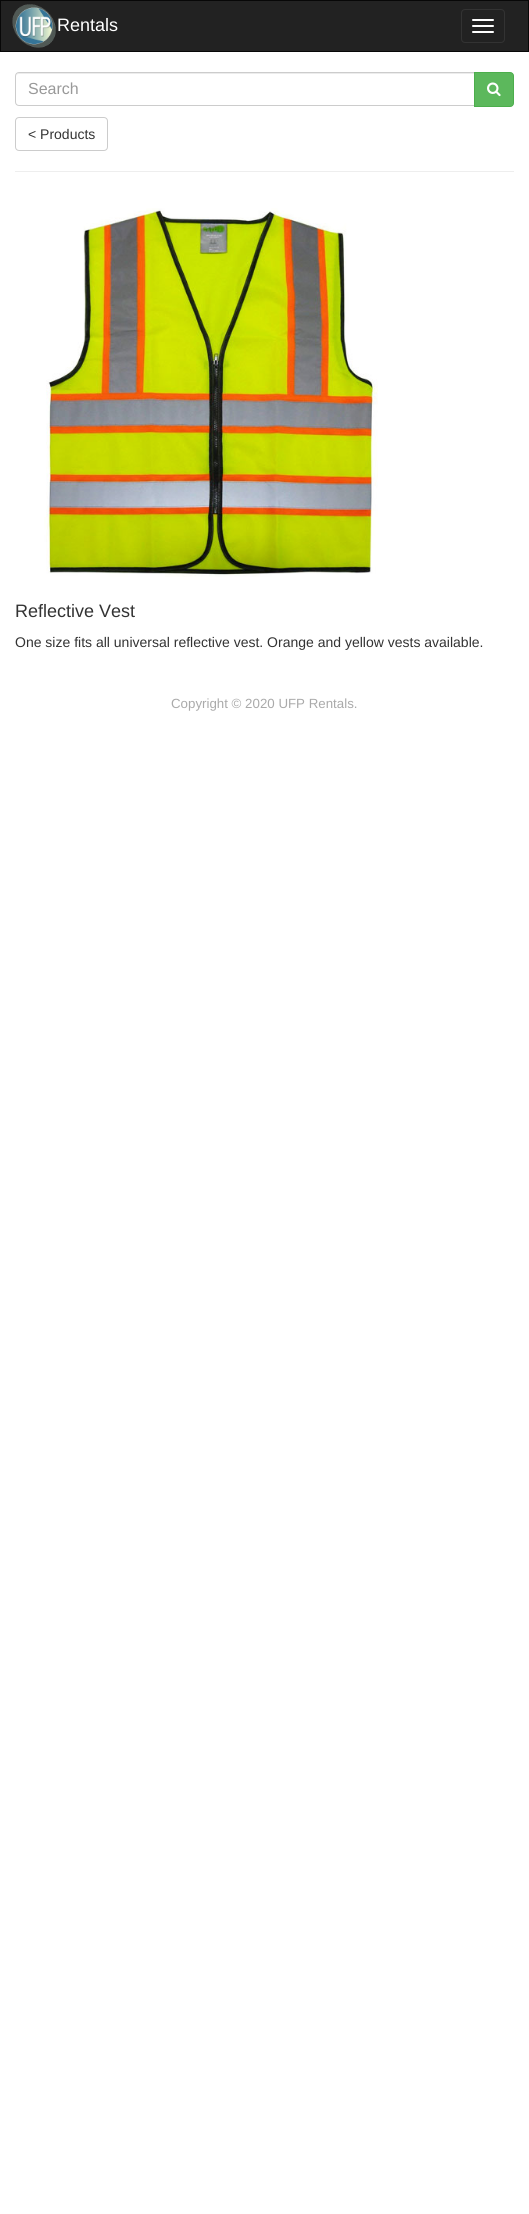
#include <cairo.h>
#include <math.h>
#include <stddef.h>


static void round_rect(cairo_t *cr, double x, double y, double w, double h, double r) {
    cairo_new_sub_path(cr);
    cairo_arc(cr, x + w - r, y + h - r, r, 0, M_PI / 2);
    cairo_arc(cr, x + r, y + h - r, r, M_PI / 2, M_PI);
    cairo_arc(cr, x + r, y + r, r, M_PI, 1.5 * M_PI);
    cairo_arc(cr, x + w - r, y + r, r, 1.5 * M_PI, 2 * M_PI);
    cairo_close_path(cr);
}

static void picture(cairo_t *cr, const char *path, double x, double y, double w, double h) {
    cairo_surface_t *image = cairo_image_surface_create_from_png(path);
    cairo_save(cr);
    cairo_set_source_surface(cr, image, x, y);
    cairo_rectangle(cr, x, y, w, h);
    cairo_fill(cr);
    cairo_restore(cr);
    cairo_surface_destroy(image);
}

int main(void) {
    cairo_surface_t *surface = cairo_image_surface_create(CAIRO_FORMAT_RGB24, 529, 2214);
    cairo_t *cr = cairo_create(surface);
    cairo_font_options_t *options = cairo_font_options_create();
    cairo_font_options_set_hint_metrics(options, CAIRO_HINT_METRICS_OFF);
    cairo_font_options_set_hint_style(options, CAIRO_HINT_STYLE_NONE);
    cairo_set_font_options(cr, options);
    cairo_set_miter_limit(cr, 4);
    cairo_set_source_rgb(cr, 1, 1, 1);
    cairo_paint(cr);
    cairo_set_source_rgb(cr, 0.133, 0.133, 0.133);
    cairo_rectangle(cr, 0.5, 0.5, 528, 51);
    cairo_fill_preserve(cr);
    cairo_set_source_rgb(cr, 0.031, 0.031, 0.031);
    cairo_set_line_width(cr, 1);
    cairo_stroke(cr);
    picture(cr, "img1.png", 12, 4, 44, 44);
    cairo_select_font_face(cr, "Liberation Sans", CAIRO_FONT_SLANT_NORMAL, CAIRO_FONT_WEIGHT_NORMAL);
    cairo_set_font_size(cr, 18);
    cairo_set_source_rgb(cr, 1, 1, 1);
    cairo_move_to(cr, 57, 31);
    cairo_show_text(cr, "Rentals");
    round_rect(cr, 461.5, 9.5, 43, 33, 3.5);
    cairo_set_source_rgb(cr, 0.2, 0.2, 0.2);
    cairo_stroke(cr);
    cairo_set_source_rgb(cr, 1, 1, 1);
    round_rect(cr, 472, 19, 22, 2, 1);
    cairo_fill(cr);
    round_rect(cr, 472, 25, 22, 2, 1);
    cairo_fill(cr);
    round_rect(cr, 472, 31, 22, 2, 1);
    cairo_fill(cr);
    cairo_set_source_rgb(cr, 0.925, 0.925, 0.925);
    cairo_new_path(cr);
    cairo_move_to(cr, 19, 74);
    cairo_line_to(cr, 474, 74);
    cairo_line_to(cr, 474, 73);
    cairo_line_to(cr, 19, 73);
    cairo_curve_to(cr, 17, 73, 16, 75, 16, 77);
    cairo_curve_to(cr, 16, 75, 17, 74, 19, 74);
    cairo_close_path(cr);
    cairo_fill(cr);
    cairo_new_path(cr);
    cairo_move_to(cr, 19, 72.5);
    cairo_line_to(cr, 474.5, 72.5);
    cairo_line_to(cr, 474.5, 105.5);
    cairo_line_to(cr, 19, 105.5);
    cairo_curve_to(cr, 17, 105.5, 15.5, 104, 15.5, 102);
    cairo_line_to(cr, 15.5, 76);
    cairo_curve_to(cr, 15.5, 74, 17, 72.5, 19, 72.5);
    cairo_close_path(cr);
    cairo_set_source_rgb(cr, 0.8, 0.8, 0.8);
    cairo_stroke(cr);
    cairo_set_font_size(cr, 16);
    cairo_set_source_rgb(cr, 0.6, 0.6, 0.6);
    cairo_move_to(cr, 28, 94);
    cairo_show_text(cr, "Search");
    cairo_set_source_rgb(cr, 0.361, 0.722, 0.361);
    cairo_new_path(cr);
    cairo_move_to(cr, 474.5, 72.5);
    cairo_line_to(cr, 510, 72.5);
    cairo_curve_to(cr, 512, 72.5, 513.5, 74, 513.5, 76);
    cairo_line_to(cr, 513.5, 103);
    cairo_curve_to(cr, 513.5, 105, 512, 106.5, 510, 106.5);
    cairo_line_to(cr, 474.5, 106.5);
    cairo_close_path(cr);
    cairo_fill_preserve(cr);
    cairo_set_source_rgb(cr, 0.298, 0.682, 0.298);
    cairo_stroke(cr);
    picture(cr, "img2.png", 487, 82, 14, 15);
    round_rect(cr, 15.5, 117.5, 92, 33, 3.5);
    cairo_set_source_rgb(cr, 0.8, 0.8, 0.8);
    cairo_stroke(cr);
    cairo_set_font_size(cr, 14);
    cairo_set_source_rgb(cr, 0.2, 0.2, 0.2);
    cairo_move_to(cr, 28, 139);
    cairo_show_text(cr, "< Products");
    cairo_set_source_rgb(cr, 0.933, 0.933, 0.933);
    cairo_rectangle(cr, 15, 171, 499, 1);
    cairo_fill(cr);
    picture(cr, "img3.png", 44, 208, 334, 369);
    cairo_set_font_size(cr, 18);
    cairo_set_source_rgb(cr, 0.2, 0.2, 0.2);
    cairo_move_to(cr, 15, 617);
    cairo_show_text(cr, "Reflective Vest");
    cairo_set_font_size(cr, 14);
    cairo_move_to(cr, 15, 647);
    cairo_show_text(cr, "One size fits all universal reflective vest. Orange and yellow vests available.");
    cairo_set_font_size(cr, 13.3);
    cairo_set_source_rgb(cr, 0.667, 0.667, 0.667);
    cairo_move_to(cr, 171, 708);
    cairo_show_text(cr, "Copyright © 2020 UFP Rentals.");
    cairo_surface_write_to_png(surface, "page.png");
    cairo_font_options_destroy(options);
    cairo_destroy(cr);
    cairo_surface_destroy(surface);
    return 0;
}
